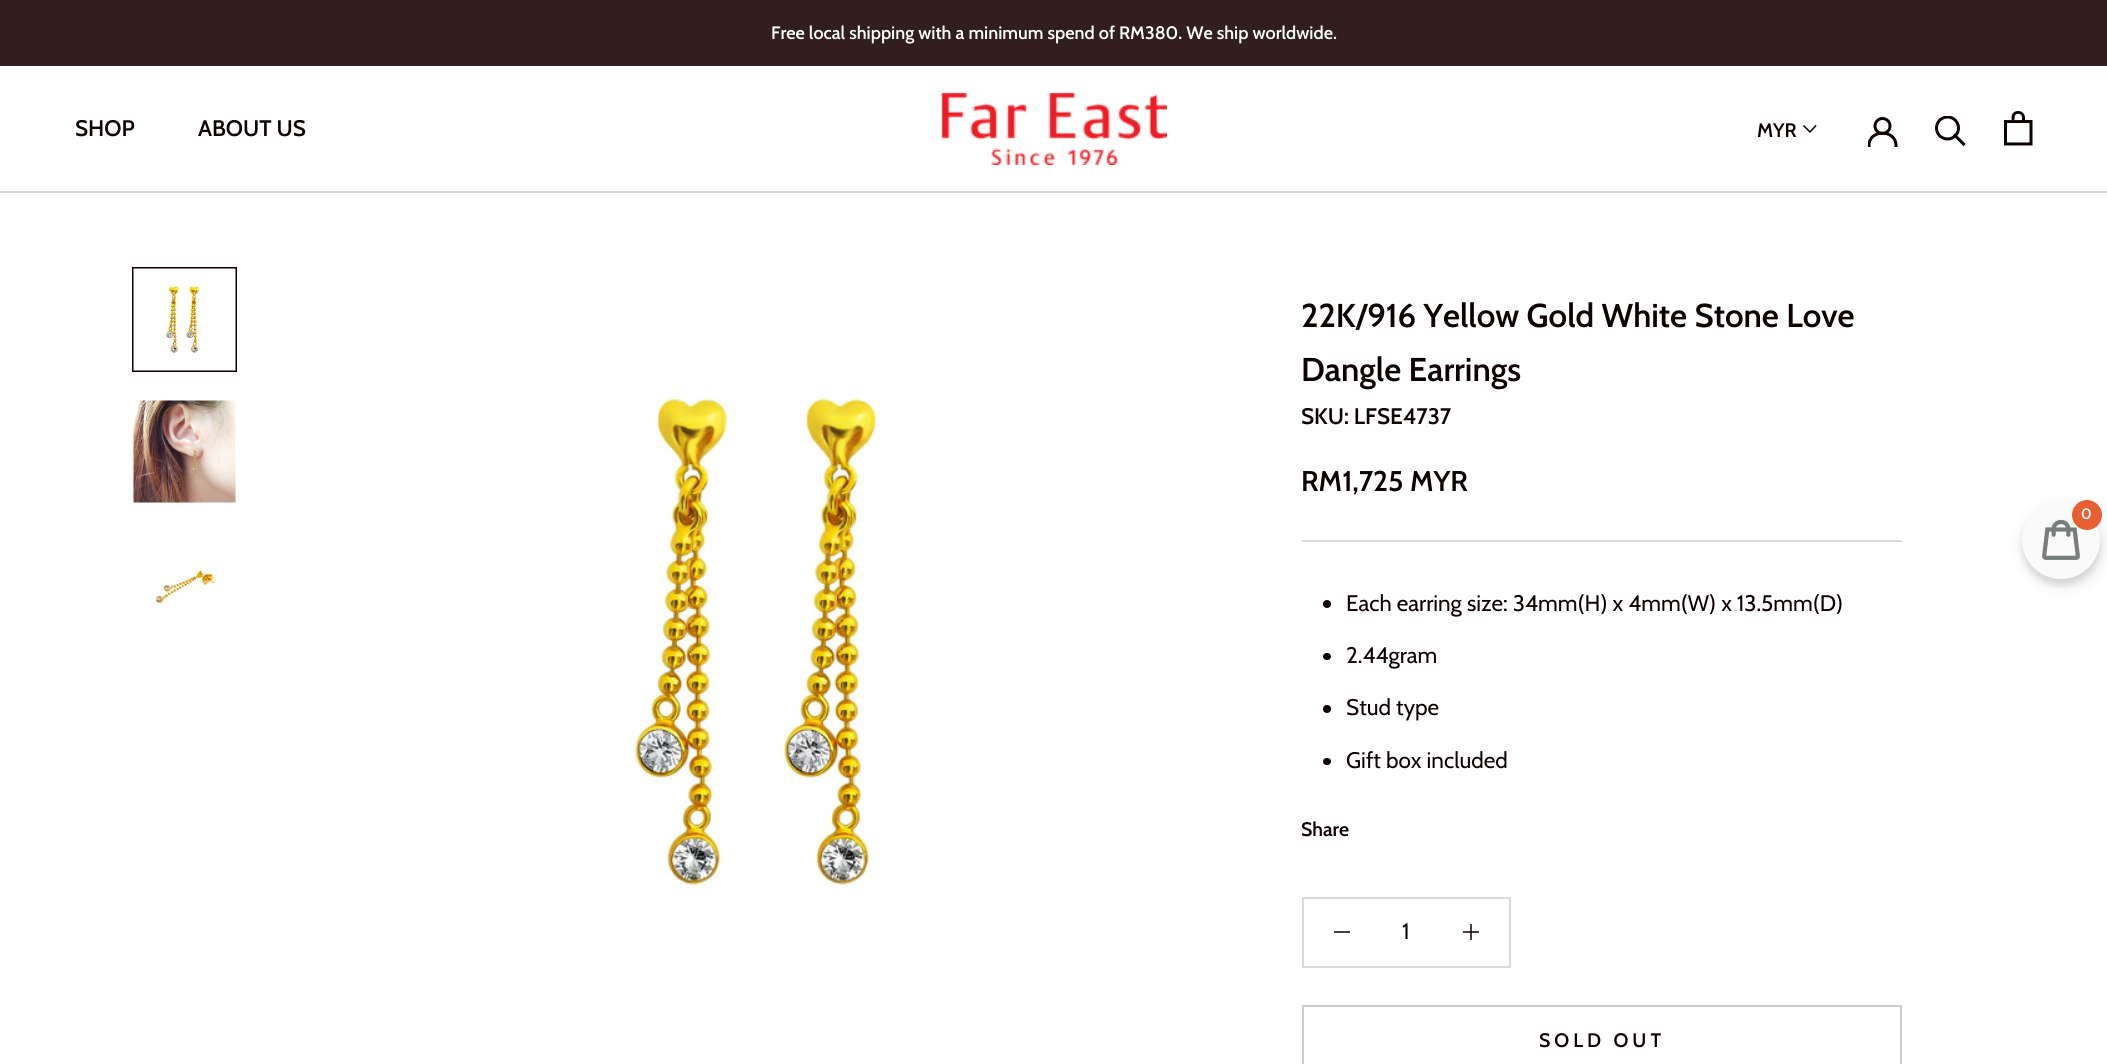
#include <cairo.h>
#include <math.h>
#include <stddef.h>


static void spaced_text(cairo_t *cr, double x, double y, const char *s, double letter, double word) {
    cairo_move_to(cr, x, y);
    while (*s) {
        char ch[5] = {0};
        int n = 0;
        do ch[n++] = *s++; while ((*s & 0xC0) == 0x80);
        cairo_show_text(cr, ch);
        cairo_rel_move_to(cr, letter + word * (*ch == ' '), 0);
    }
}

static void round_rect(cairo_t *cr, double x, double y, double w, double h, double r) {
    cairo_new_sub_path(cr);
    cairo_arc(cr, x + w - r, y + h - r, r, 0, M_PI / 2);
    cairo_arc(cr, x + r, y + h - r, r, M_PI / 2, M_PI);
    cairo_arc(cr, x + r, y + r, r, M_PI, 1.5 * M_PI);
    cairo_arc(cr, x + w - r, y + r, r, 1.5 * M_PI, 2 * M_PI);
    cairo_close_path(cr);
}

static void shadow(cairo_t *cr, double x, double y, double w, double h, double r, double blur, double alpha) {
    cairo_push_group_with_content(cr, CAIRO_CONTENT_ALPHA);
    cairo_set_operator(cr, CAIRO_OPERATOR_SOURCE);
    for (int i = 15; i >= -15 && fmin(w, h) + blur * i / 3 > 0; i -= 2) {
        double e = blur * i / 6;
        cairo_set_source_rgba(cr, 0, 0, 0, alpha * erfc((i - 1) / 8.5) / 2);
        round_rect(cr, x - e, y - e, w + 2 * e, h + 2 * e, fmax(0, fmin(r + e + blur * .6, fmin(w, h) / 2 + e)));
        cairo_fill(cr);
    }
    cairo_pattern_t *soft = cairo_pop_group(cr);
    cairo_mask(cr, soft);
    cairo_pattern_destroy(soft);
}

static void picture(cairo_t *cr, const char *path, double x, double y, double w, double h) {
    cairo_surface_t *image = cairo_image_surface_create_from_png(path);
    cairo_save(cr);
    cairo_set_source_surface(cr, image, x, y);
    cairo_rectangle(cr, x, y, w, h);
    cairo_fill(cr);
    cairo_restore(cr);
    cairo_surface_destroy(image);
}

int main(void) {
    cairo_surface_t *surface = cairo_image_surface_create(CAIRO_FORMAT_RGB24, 2107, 1064);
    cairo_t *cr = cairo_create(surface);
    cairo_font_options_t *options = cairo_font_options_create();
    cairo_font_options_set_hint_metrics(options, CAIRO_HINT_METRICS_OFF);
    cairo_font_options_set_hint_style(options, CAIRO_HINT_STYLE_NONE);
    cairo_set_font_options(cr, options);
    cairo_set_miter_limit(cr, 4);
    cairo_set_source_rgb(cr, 1, 1, 1);
    cairo_paint(cr);
    cairo_set_source_rgb(cr, 0.286, 0.255, 0.255);
    cairo_rectangle(cr, 1463, 931, 16, 2);
    cairo_fill(cr);
    cairo_set_source_rgb(cr, 0.196, 0.118, 0.118);
    cairo_rectangle(cr, 0, 0, 2107, 66);
    cairo_fill(cr);
    cairo_select_font_face(cr, "Cabin SemiBold", CAIRO_FONT_SLANT_NORMAL, CAIRO_FONT_WEIGHT_NORMAL);
    cairo_set_font_size(cr, 18);
    cairo_set_source_rgb(cr, 1, 1, 1);
    cairo_move_to(cr, 771, 39);
    cairo_show_text(cr, "Free local shipping with a minimum spend of RM380. We ship worldwide.");
    cairo_set_source_rgb(cr, 0.859, 0.851, 0.851);
    cairo_rectangle(cr, 0, 191, 2107, 2);
    cairo_fill(cr);
    cairo_set_font_size(cr, 22.5);
    cairo_set_source_rgb(cr, 0.047, 0.004, 0.004);
    cairo_move_to(cr, 75, 136);
    cairo_show_text(cr, "SHOP");
    cairo_move_to(cr, 198, 136);
    cairo_show_text(cr, "ABOUT US");
    picture(cr, "img1.png", 941, 92, 226, 73);
    cairo_set_font_size(cr, 19.5);
    cairo_move_to(cr, 1757, 137);
    cairo_show_text(cr, "MYR");
    cairo_new_path(cr);
    cairo_move_to(cr, 1815.5, 126);
    cairo_line_to(cr, 1810, 132);
    cairo_line_to(cr, 1804, 126);
    cairo_set_line_width(cr, 1.5);
    cairo_set_line_cap(cr, CAIRO_LINE_CAP_SQUARE);
    cairo_stroke(cr);
    cairo_save(cr);
    cairo_rectangle(cr, 1868, 117, 30, 30);
    cairo_clip(cr);
    cairo_new_path(cr);
    cairo_move_to(cr, 1869, 145.5);
    cairo_curve_to(cr, 1869, 129, 1896, 129, 1896, 145.5);
    cairo_set_line_width(cr, 3);
    cairo_stroke(cr);
    cairo_restore(cr);
    cairo_arc(cr, 1882.5, 126, 7.5, 0, 2 * M_PI);
    cairo_set_line_width(cr, 3);
    cairo_set_line_cap(cr, CAIRO_LINE_CAP_BUTT);
    cairo_stroke(cr);
    cairo_new_path(cr);
    cairo_move_to(cr, 1963.5, 144);
    cairo_line_to(cr, 1955, 135.5);
    cairo_set_line_cap(cr, CAIRO_LINE_CAP_SQUARE);
    cairo_stroke(cr);
    cairo_save(cr);
    cairo_rectangle(cr, 1935, 116, 32, 31);
    cairo_clip(cr);
    cairo_arc(cr, 1947.5, 128, 11, 0, 2 * M_PI);
    cairo_set_line_cap(cr, CAIRO_LINE_CAP_BUTT);
    cairo_stroke(cr);
    cairo_restore(cr);
    picture(cr, "img2.png", 2004, 111, 29, 35);
    cairo_rectangle(cr, 133, 268, 103, 103);
    cairo_set_line_width(cr, 2);
    cairo_set_line_cap(cr, CAIRO_LINE_CAP_BUTT);
    cairo_stroke(cr);
    picture(cr, "img3.png", 133, 268, 103, 103);
    picture(cr, "img4.png", 133, 400, 103, 103);
    picture(cr, "img5.png", 154, 570, 61, 34);
    picture(cr, "img6.png", 633, 397, 251, 489);
    cairo_set_font_size(cr, 33);
    cairo_move_to(cr, 1301, 327);
    cairo_show_text(cr, "22K/916 Yellow Gold White Stone Love");
    cairo_move_to(cr, 1301, 381);
    cairo_show_text(cr, "Dangle Earrings");
    cairo_set_font_size(cr, 22.5);
    cairo_move_to(cr, 1301, 424);
    cairo_show_text(cr, "SKU: LFSE4737");
    cairo_set_font_size(cr, 28.5);
    cairo_move_to(cr, 1301, 491);
    cairo_show_text(cr, "RM1,725 MYR");
    cairo_set_source_rgb(cr, 0.859, 0.851, 0.851);
    cairo_rectangle(cr, 1302, 540, 600, 2);
    cairo_fill(cr);
    cairo_set_source_rgb(cr, 0.047, 0.004, 0.004);
    cairo_arc(cr, 1327, 604, 4, 0, 2 * M_PI);
    cairo_fill(cr);
    cairo_select_font_face(cr, "Cabin", CAIRO_FONT_SLANT_NORMAL, CAIRO_FONT_WEIGHT_NORMAL);
    cairo_set_font_size(cr, 22.5);
    cairo_move_to(cr, 1346, 611);
    cairo_show_text(cr, "Each earring size: 34mm(H) x 4mm(W) x 13.5mm(D)");
    round_rect(cr, 1323, 653, 8, 7, 3.5);
    cairo_fill(cr);
    cairo_move_to(cr, 1346, 663);
    cairo_show_text(cr, "2.44gram");
    cairo_new_path(cr);
    cairo_arc(cr, 1327, 709, 4, 0, 2 * M_PI);
    cairo_fill(cr);
    cairo_move_to(cr, 1346, 715);
    cairo_show_text(cr, "Stud type");
    round_rect(cr, 1323, 758, 8, 7, 3.5);
    cairo_fill(cr);
    cairo_move_to(cr, 1346, 768);
    cairo_show_text(cr, "Gift box included");
    cairo_select_font_face(cr, "Cabin SemiBold", CAIRO_FONT_SLANT_NORMAL, CAIRO_FONT_WEIGHT_NORMAL);
    cairo_set_font_size(cr, 19.5);
    cairo_move_to(cr, 1301, 836);
    cairo_show_text(cr, "Share");
    cairo_rectangle(cr, 1303, 898, 207, 69);
    cairo_set_source_rgb(cr, 0.859, 0.851, 0.851);
    cairo_stroke(cr);
    cairo_set_source_rgb(cr, 0.286, 0.255, 0.255);
    cairo_rectangle(cr, 1334, 931, 16, 2);
    cairo_fill(cr);
    cairo_select_font_face(cr, "Cabin", CAIRO_FONT_SLANT_NORMAL, CAIRO_FONT_WEIGHT_NORMAL);
    cairo_set_font_size(cr, 22.5);
    cairo_set_source_rgb(cr, 0.047, 0.004, 0.004);
    cairo_move_to(cr, 1402, 939);
    cairo_show_text(cr, "1");
    cairo_set_source_rgb(cr, 0.286, 0.255, 0.255);
    cairo_rectangle(cr, 1470, 924, 2, 16);
    cairo_fill(cr);
    cairo_set_source_rgb(cr, 0.106, 0.067, 0.067);
    cairo_rectangle(cr, 1470, 931, 2, 2);
    cairo_fill(cr);
    cairo_rectangle(cr, 1303, 1006, 598, 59);
    cairo_set_source_rgb(cr, 0.808, 0.8, 0.8);
    cairo_stroke(cr);
    cairo_select_font_face(cr, "Cabin SemiBold", CAIRO_FONT_SLANT_NORMAL, CAIRO_FONT_WEIGHT_NORMAL);
    cairo_set_font_size(cr, 19.5);
    cairo_set_source_rgb(cr, 0.047, 0.004, 0.004);
    spaced_text(cr, 1539, 1047, "SOLD OUT", 4, 0);
    cairo_set_source_rgb(cr, 0, 0, 0);
    shadow(cr, 2022, 507, 78, 78, 39, 3, 0.08);
    shadow(cr, 2024, 507, 78, 78, 39, 7.5, 0.12);
    cairo_set_source_rgb(cr, 0.98, 0.98, 0.98);
    cairo_arc(cr, 2061, 540, 39, 0, 2 * M_PI);
    cairo_fill(cr);
    picture(cr, "img7.png", 2042, 519, 38, 41);
    cairo_set_source_rgb(cr, 0.906, 0.373, 0.2);
    cairo_arc(cr, 2087, 515, 15, 0, 2 * M_PI);
    cairo_fill(cr);
    cairo_set_font_size(cr, 15);
    cairo_set_source_rgb(cr, 1, 1, 1);
    cairo_move_to(cr, 2081, 519);
    cairo_show_text(cr, "0");
    cairo_surface_write_to_png(surface, "page.png");
    cairo_font_options_destroy(options);
    cairo_destroy(cr);
    cairo_surface_destroy(surface);
    return 0;
}
